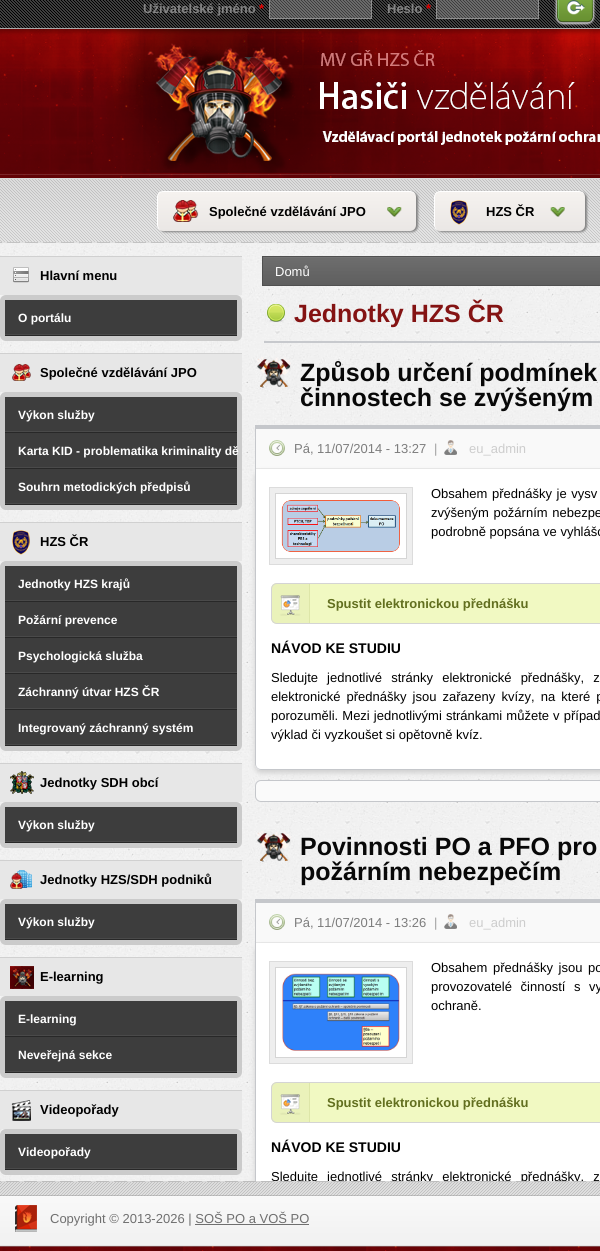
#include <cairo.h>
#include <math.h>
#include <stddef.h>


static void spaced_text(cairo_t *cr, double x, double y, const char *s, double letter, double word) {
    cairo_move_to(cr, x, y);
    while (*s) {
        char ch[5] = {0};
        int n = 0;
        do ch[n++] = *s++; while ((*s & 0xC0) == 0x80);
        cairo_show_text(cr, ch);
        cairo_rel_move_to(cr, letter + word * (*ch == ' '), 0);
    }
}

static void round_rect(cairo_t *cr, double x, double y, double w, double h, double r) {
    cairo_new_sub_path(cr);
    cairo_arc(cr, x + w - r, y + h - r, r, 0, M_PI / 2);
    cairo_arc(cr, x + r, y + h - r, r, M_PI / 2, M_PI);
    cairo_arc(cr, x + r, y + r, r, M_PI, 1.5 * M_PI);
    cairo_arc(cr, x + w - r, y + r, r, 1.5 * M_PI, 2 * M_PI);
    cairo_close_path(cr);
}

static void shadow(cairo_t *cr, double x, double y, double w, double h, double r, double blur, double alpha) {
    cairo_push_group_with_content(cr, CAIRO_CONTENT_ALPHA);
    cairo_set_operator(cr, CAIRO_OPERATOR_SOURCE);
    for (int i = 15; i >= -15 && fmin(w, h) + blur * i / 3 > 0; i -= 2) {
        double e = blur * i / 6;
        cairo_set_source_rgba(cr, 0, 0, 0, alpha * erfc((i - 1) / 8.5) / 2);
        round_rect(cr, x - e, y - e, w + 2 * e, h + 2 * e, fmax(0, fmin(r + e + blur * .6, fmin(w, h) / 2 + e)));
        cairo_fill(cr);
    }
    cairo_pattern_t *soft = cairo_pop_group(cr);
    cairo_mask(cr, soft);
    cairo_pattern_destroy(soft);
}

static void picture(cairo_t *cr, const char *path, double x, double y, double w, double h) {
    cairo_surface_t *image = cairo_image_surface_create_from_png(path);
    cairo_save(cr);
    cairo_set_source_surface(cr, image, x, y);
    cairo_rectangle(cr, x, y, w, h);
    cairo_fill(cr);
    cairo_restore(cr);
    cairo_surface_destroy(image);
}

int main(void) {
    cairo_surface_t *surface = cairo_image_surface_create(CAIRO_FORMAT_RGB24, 600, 1251);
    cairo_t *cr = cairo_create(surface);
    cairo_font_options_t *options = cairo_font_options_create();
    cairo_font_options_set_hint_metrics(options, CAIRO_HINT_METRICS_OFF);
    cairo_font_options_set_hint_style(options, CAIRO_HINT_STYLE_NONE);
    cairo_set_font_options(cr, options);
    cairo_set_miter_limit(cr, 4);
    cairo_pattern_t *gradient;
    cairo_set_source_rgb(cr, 1, 1, 1);
    cairo_paint(cr);
    picture(cr, "img1.png", 0, 244, 600, 937);
    picture(cr, "img2.png", 0, 0, 600, 244);
    picture(cr, "img3.png", 0, 29, 600, 145);
    cairo_select_font_face(cr, "Liberation Sans", CAIRO_FONT_SLANT_NORMAL, CAIRO_FONT_WEIGHT_BOLD);
    cairo_set_font_size(cr, 13);
    cairo_set_source_rgb(cr, 0.518, 0.518, 0.518);
    cairo_move_to(cr, 143, 13);
    cairo_show_text(cr, "Uživatelské jméno");
    cairo_set_source_rgb(cr, 0.89, 0, 0);
    cairo_move_to(cr, 259, 13);
    cairo_show_text(cr, "*");
    picture(cr, "img4.png", 270, 0, 101, 18);
    cairo_rectangle(cr, 269.5, -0.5, 102, 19);
    cairo_set_source_rgb(cr, 0.561, 0.561, 0.561);
    cairo_set_line_width(cr, 1);
    cairo_stroke(cr);
    cairo_set_source_rgb(cr, 0.518, 0.518, 0.518);
    cairo_move_to(cr, 387, 13);
    cairo_show_text(cr, "Heslo");
    cairo_set_source_rgb(cr, 0.89, 0, 0);
    cairo_move_to(cr, 426, 13);
    cairo_show_text(cr, "*");
    picture(cr, "img5.png", 437, 0, 101, 18);
    cairo_rectangle(cr, 436.5, -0.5, 102, 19);
    cairo_set_source_rgb(cr, 0.561, 0.561, 0.561);
    cairo_stroke(cr);
    cairo_set_source_rgb(cr, 0.871, 0.871, 0.871);
    shadow(cr, 556, -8, 38, 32, 7, 1, 1);
    picture(cr, "img6.png", 557, 0, 36, 23);
    cairo_set_source_rgb(cr, 0.514, 0.514, 0.514);
    shadow(cr, 159, 192, 259, 40, 6, 1, 1);
    cairo_save(cr);
    round_rect(cr, 157, 191, 259, 40, 6);
    cairo_clip(cr);
    gradient = cairo_pattern_create_linear(287, 192, 287, 231);
    cairo_pattern_add_color_stop_rgba(gradient, 0, 0.961, 0.949, 0.937, 1);
    cairo_pattern_add_color_stop_rgba(gradient, 0.99, 0.918, 0.906, 0.898, 1);
    cairo_set_source(cr, gradient);
    cairo_pattern_destroy(gradient);
    cairo_new_path(cr);
    cairo_move_to(cr, 158, 192);
    cairo_line_to(cr, 416, 192);
    cairo_line_to(cr, 416, 225);
    cairo_curve_to(cr, 416, 228.5, 413.5, 231, 410, 231);
    cairo_line_to(cr, 158, 231);
    cairo_close_path(cr);
    cairo_fill(cr);
    cairo_restore(cr);
    cairo_set_source_rgb(cr, 1, 1, 1);
    cairo_set_fill_rule(cr, CAIRO_FILL_RULE_EVEN_ODD);
    cairo_new_path(cr);
    cairo_move_to(cr, 163, 191);
    cairo_line_to(cr, 410, 191);
    cairo_curve_to(cr, 413, 191, 416, 194, 416, 197);
    cairo_line_to(cr, 416, 225);
    cairo_curve_to(cr, 416, 228, 413, 231, 410, 231);
    cairo_line_to(cr, 163, 231);
    cairo_curve_to(cr, 160, 231, 157, 228, 157, 225);
    cairo_line_to(cr, 157, 197);
    cairo_curve_to(cr, 157, 194, 160, 191, 163, 191);
    cairo_close_path(cr);
    cairo_move_to(cr, 163, 192);
    cairo_line_to(cr, 410, 192);
    cairo_curve_to(cr, 413, 192, 416, 194, 416, 197);
    cairo_line_to(cr, 416, 225);
    cairo_curve_to(cr, 416, 228, 413, 231, 410, 231);
    cairo_line_to(cr, 163, 231);
    cairo_curve_to(cr, 160, 231, 158, 228, 158, 225);
    cairo_line_to(cr, 158, 197);
    cairo_curve_to(cr, 158, 194, 160, 192, 163, 192);
    cairo_close_path(cr);
    cairo_fill(cr);
    picture(cr, "img7.png", 173, 200, 229, 22);
    cairo_set_source_rgb(cr, 0, 0, 0);
    cairo_move_to(cr, 209, 216);
    cairo_show_text(cr, "Společné vzdělávání JPO");
    cairo_set_source_rgb(cr, 0.514, 0.514, 0.514);
    shadow(cr, 436, 192, 151, 40, 6, 1, 1);
    cairo_save(cr);
    cairo_set_fill_rule(cr, CAIRO_FILL_RULE_WINDING);
    round_rect(cr, 434, 191, 151, 40, 6);
    cairo_clip(cr);
    gradient = cairo_pattern_create_linear(510, 192, 510, 231);
    cairo_pattern_add_color_stop_rgba(gradient, 0, 0.961, 0.949, 0.937, 1);
    cairo_pattern_add_color_stop_rgba(gradient, 0.99, 0.918, 0.906, 0.898, 1);
    cairo_set_source(cr, gradient);
    cairo_pattern_destroy(gradient);
    cairo_new_path(cr);
    cairo_move_to(cr, 435, 192);
    cairo_line_to(cr, 585, 192);
    cairo_line_to(cr, 585, 225);
    cairo_curve_to(cr, 585, 228.5, 582.5, 231, 579, 231);
    cairo_line_to(cr, 435, 231);
    cairo_close_path(cr);
    cairo_fill(cr);
    cairo_restore(cr);
    cairo_set_source_rgb(cr, 1, 1, 1);
    cairo_new_path(cr);
    cairo_move_to(cr, 440, 191);
    cairo_line_to(cr, 579, 191);
    cairo_curve_to(cr, 582, 191, 585, 194, 585, 197);
    cairo_line_to(cr, 585, 225);
    cairo_curve_to(cr, 585, 228, 582, 231, 579, 231);
    cairo_line_to(cr, 440, 231);
    cairo_curve_to(cr, 437, 231, 434, 228, 434, 225);
    cairo_line_to(cr, 434, 197);
    cairo_curve_to(cr, 434, 194, 437, 191, 440, 191);
    cairo_close_path(cr);
    cairo_move_to(cr, 440, 192);
    cairo_line_to(cr, 579, 192);
    cairo_curve_to(cr, 582, 192, 585, 194, 585, 197);
    cairo_line_to(cr, 585, 225);
    cairo_curve_to(cr, 585, 228, 582, 231, 579, 231);
    cairo_line_to(cr, 440, 231);
    cairo_curve_to(cr, 437, 231, 435, 228, 435, 225);
    cairo_line_to(cr, 435, 197);
    cairo_curve_to(cr, 435, 194, 437, 192, 440, 192);
    cairo_close_path(cr);
    cairo_fill(cr);
    picture(cr, "img8.png", 450, 200, 115, 25);
    cairo_set_source_rgb(cr, 0, 0, 0);
    cairo_move_to(cr, 486, 216);
    cairo_show_text(cr, "HZS ČR");
    cairo_set_source_rgb(cr, 0.906, 0.906, 0.906);
    cairo_rectangle(cr, 0, 257, 242, 38);
    cairo_fill(cr);
    cairo_set_source_rgb(cr, 0.816, 0.816, 0.816);
    cairo_rectangle(cr, 0, 256, 242, 1);
    cairo_fill(cr);
    picture(cr, "img9.png", 13, 267, 16, 16);
    cairo_set_source_rgb(cr, 0, 0, 0);
    cairo_move_to(cr, 40, 280);
    cairo_show_text(cr, "Hlavní menu");
    cairo_set_source_rgb(cr, 0.796, 0.796, 0.796);
    round_rect(cr, 0, 295, 242, 46, 6);
    cairo_fill(cr);
    picture(cr, "img10.png", 5, 300, 221, 36);
    picture(cr, "img11.png", 226, 300, 11, 36);
    cairo_set_font_size(cr, 12);
    cairo_set_source_rgb(cr, 1, 1, 1);
    cairo_move_to(cr, 18, 322);
    cairo_show_text(cr, "O portálu");
    cairo_set_source_rgb(cr, 0.906, 0.906, 0.906);
    cairo_rectangle(cr, 0, 354, 242, 38);
    cairo_fill(cr);
    cairo_set_source_rgb(cr, 0.816, 0.816, 0.816);
    cairo_rectangle(cr, 0, 353, 242, 1);
    cairo_fill(cr);
    picture(cr, "img12.png", 12, 364, 19, 17);
    cairo_set_font_size(cr, 13);
    cairo_set_source_rgb(cr, 0, 0, 0);
    cairo_move_to(cr, 40, 377);
    cairo_show_text(cr, "Společné vzdělávání JPO");
    cairo_set_source_rgb(cr, 0.796, 0.796, 0.796);
    round_rect(cr, 0, 392, 242, 118, 6);
    cairo_fill(cr);
    picture(cr, "img10.png", 5, 397, 221, 36);
    picture(cr, "img11.png", 226, 397, 11, 36);
    cairo_set_font_size(cr, 12);
    cairo_set_source_rgb(cr, 1, 1, 1);
    cairo_move_to(cr, 18, 419);
    cairo_show_text(cr, "Výkon služby");
    picture(cr, "img10.png", 5, 433, 221, 36);
    picture(cr, "img11.png", 226, 433, 11, 36);
    cairo_move_to(cr, 18, 455);
    cairo_show_text(cr, "Karta KID - problematika kriminality dě");
    picture(cr, "img10.png", 5, 469, 221, 36);
    picture(cr, "img11.png", 226, 469, 11, 36);
    cairo_move_to(cr, 18, 491);
    cairo_show_text(cr, "Souhrn metodických předpisů");
    cairo_set_source_rgb(cr, 0.906, 0.906, 0.906);
    cairo_rectangle(cr, 0, 523, 242, 38);
    cairo_fill(cr);
    cairo_set_source_rgb(cr, 0.816, 0.816, 0.816);
    cairo_rectangle(cr, 0, 522, 242, 1);
    cairo_fill(cr);
    picture(cr, "img13.png", 12, 530, 18, 25);
    cairo_set_font_size(cr, 13);
    cairo_set_source_rgb(cr, 0, 0, 0);
    cairo_move_to(cr, 40, 546);
    cairo_show_text(cr, "HZS ČR");
    cairo_set_source_rgb(cr, 0.796, 0.796, 0.796);
    round_rect(cr, 0, 561, 242, 190, 6);
    cairo_fill(cr);
    picture(cr, "img10.png", 5, 566, 221, 36);
    picture(cr, "img11.png", 226, 566, 11, 36);
    cairo_set_font_size(cr, 12);
    cairo_set_source_rgb(cr, 1, 1, 1);
    cairo_move_to(cr, 18, 588);
    cairo_show_text(cr, "Jednotky HZS krajů");
    picture(cr, "img10.png", 5, 602, 221, 36);
    picture(cr, "img11.png", 226, 602, 11, 36);
    cairo_move_to(cr, 18, 624);
    cairo_show_text(cr, "Požární prevence");
    picture(cr, "img10.png", 5, 638, 221, 36);
    picture(cr, "img11.png", 226, 638, 11, 36);
    cairo_move_to(cr, 18, 660);
    cairo_show_text(cr, "Psychologická služba");
    picture(cr, "img10.png", 5, 674, 221, 36);
    picture(cr, "img11.png", 226, 674, 11, 36);
    cairo_move_to(cr, 18, 696);
    cairo_show_text(cr, "Záchranný útvar HZS ČR");
    picture(cr, "img10.png", 5, 710, 221, 36);
    picture(cr, "img11.png", 226, 710, 11, 36);
    cairo_move_to(cr, 18, 732);
    cairo_show_text(cr, "Integrovaný záchranný systém");
    cairo_set_source_rgb(cr, 0.906, 0.906, 0.906);
    cairo_rectangle(cr, 0, 764, 242, 38);
    cairo_fill(cr);
    cairo_set_source_rgb(cr, 0.816, 0.816, 0.816);
    cairo_rectangle(cr, 0, 763, 242, 1);
    cairo_fill(cr);
    picture(cr, "img14.png", 10, 771, 24, 23);
    cairo_set_font_size(cr, 13);
    cairo_set_source_rgb(cr, 0, 0, 0);
    cairo_move_to(cr, 40, 787);
    cairo_show_text(cr, "Jednotky SDH obcí");
    cairo_set_source_rgb(cr, 0.796, 0.796, 0.796);
    round_rect(cr, 0, 802, 242, 46, 6);
    cairo_fill(cr);
    picture(cr, "img10.png", 5, 807, 221, 36);
    picture(cr, "img11.png", 226, 807, 11, 36);
    cairo_set_font_size(cr, 12);
    cairo_set_source_rgb(cr, 1, 1, 1);
    cairo_move_to(cr, 18, 829);
    cairo_show_text(cr, "Výkon služby");
    cairo_set_source_rgb(cr, 0.906, 0.906, 0.906);
    cairo_rectangle(cr, 0, 861, 242, 38);
    cairo_fill(cr);
    cairo_set_source_rgb(cr, 0.816, 0.816, 0.816);
    cairo_rectangle(cr, 0, 860, 242, 1);
    cairo_fill(cr);
    picture(cr, "img15.png", 10, 870, 22, 19);
    cairo_set_font_size(cr, 13);
    cairo_set_source_rgb(cr, 0, 0, 0);
    cairo_move_to(cr, 40, 884);
    cairo_show_text(cr, "Jednotky HZS/SDH podniků");
    cairo_set_source_rgb(cr, 0.796, 0.796, 0.796);
    round_rect(cr, 0, 899, 242, 46, 6);
    cairo_fill(cr);
    picture(cr, "img10.png", 5, 904, 221, 36);
    picture(cr, "img11.png", 226, 904, 11, 36);
    cairo_set_font_size(cr, 12);
    cairo_set_source_rgb(cr, 1, 1, 1);
    cairo_move_to(cr, 18, 926);
    cairo_show_text(cr, "Výkon služby");
    cairo_set_source_rgb(cr, 0.906, 0.906, 0.906);
    cairo_rectangle(cr, 0, 958, 242, 38);
    cairo_fill(cr);
    cairo_set_source_rgb(cr, 0.816, 0.816, 0.816);
    cairo_rectangle(cr, 0, 957, 242, 1);
    cairo_fill(cr);
    picture(cr, "img16.png", 10, 966, 24, 23);
    cairo_set_font_size(cr, 13);
    cairo_set_source_rgb(cr, 0, 0, 0);
    cairo_move_to(cr, 40, 981);
    cairo_show_text(cr, "E-learning");
    cairo_set_source_rgb(cr, 0.796, 0.796, 0.796);
    round_rect(cr, 0, 996, 242, 82, 6);
    cairo_fill(cr);
    picture(cr, "img10.png", 5, 1001, 221, 36);
    picture(cr, "img11.png", 226, 1001, 11, 36);
    cairo_set_font_size(cr, 12);
    cairo_set_source_rgb(cr, 1, 1, 1);
    cairo_move_to(cr, 18, 1023);
    cairo_show_text(cr, "E-learning");
    picture(cr, "img10.png", 5, 1037, 221, 36);
    picture(cr, "img11.png", 226, 1037, 11, 36);
    cairo_move_to(cr, 18, 1059);
    cairo_show_text(cr, "Neveřejná sekce");
    cairo_set_source_rgb(cr, 0.906, 0.906, 0.906);
    cairo_rectangle(cr, 0, 1091, 242, 38);
    cairo_fill(cr);
    cairo_set_source_rgb(cr, 0.816, 0.816, 0.816);
    cairo_rectangle(cr, 0, 1090, 242, 1);
    cairo_fill(cr);
    picture(cr, "img17.png", 11, 1100, 20, 21);
    cairo_set_font_size(cr, 13);
    cairo_set_source_rgb(cr, 0, 0, 0);
    cairo_move_to(cr, 40, 1114);
    cairo_show_text(cr, "Videopořady");
    cairo_set_source_rgb(cr, 0.796, 0.796, 0.796);
    round_rect(cr, 0, 1129, 242, 46, 6);
    cairo_fill(cr);
    picture(cr, "img10.png", 5, 1134, 221, 36);
    picture(cr, "img11.png", 226, 1134, 11, 36);
    cairo_set_font_size(cr, 12);
    cairo_set_source_rgb(cr, 1, 1, 1);
    cairo_move_to(cr, 18, 1156);
    cairo_show_text(cr, "Videopořady");
    picture(cr, "img18.png", 263, 257, 337, 28);
    cairo_rectangle(cr, 262.5, 256.5, 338, 29);
    cairo_set_source_rgb(cr, 0.314, 0.314, 0.314);
    cairo_stroke(cr);
    cairo_select_font_face(cr, "Liberation Sans", CAIRO_FONT_SLANT_NORMAL, CAIRO_FONT_WEIGHT_NORMAL);
    cairo_set_font_size(cr, 13);
    cairo_set_source_rgb(cr, 1, 1, 1);
    cairo_move_to(cr, 275, 276);
    cairo_show_text(cr, "Domů");
    picture(cr, "img19.png", 267, 304, 18, 18);
    cairo_set_source_rgb(cr, 0.78, 0.788, 0.804);
    cairo_rectangle(cr, 264, 341, 336, 2);
    cairo_fill(cr);
    cairo_select_font_face(cr, "Liberation Sans", CAIRO_FONT_SLANT_NORMAL, CAIRO_FONT_WEIGHT_BOLD);
    cairo_set_font_size(cr, 25);
    cairo_set_source_rgb(cr, 0.518, 0.078, 0.078);
    cairo_move_to(cr, 294, 322);
    cairo_show_text(cr, "Jednotky HZS ČR");
    picture(cr, "img20.png", 255, 357, 36, 33);
    cairo_set_source_rgb(cr, 0.773, 0.78, 0.796);
    cairo_rectangle(cr, 255, 425, 345, 4);
    cairo_fill(cr);
    cairo_set_source_rgb(cr, 0.035, 0.035, 0.035);
    cairo_move_to(cr, 300, 381);
    cairo_show_text(cr, "Způsob určení podmínek");
    cairo_move_to(cr, 300, 406);
    cairo_show_text(cr, "činnostech se zvýšeným");
    cairo_set_source_rgb(cr, 0.976, 0.976, 0.976);
    cairo_rectangle(cr, 256, 429, 344, 39);
    cairo_fill(cr);
    cairo_set_source_rgb(cr, 0.91, 0.91, 0.91);
    cairo_rectangle(cr, 255, 468, 345, 1);
    cairo_fill(cr);
    cairo_set_source_rgb(cr, 0.773, 0.78, 0.796);
    cairo_rectangle(cr, 255, 428, 1, 41);
    cairo_fill(cr);
    picture(cr, "img21.png", 269, 440, 16, 16);
    cairo_select_font_face(cr, "Liberation Sans", CAIRO_FONT_SLANT_NORMAL, CAIRO_FONT_WEIGHT_NORMAL);
    cairo_set_font_size(cr, 13);
    cairo_set_source_rgb(cr, 0.49, 0.49, 0.49);
    cairo_move_to(cr, 294, 453);
    cairo_show_text(cr, "Pá, 11/07/2014 - 13:27");
    cairo_set_source_rgb(cr, 0.631, 0.631, 0.631);
    cairo_move_to(cr, 434, 453);
    cairo_show_text(cr, "|");
    picture(cr, "img22.png", 444, 440, 13, 15);
    cairo_set_source_rgb(cr, 0.804, 0.804, 0.804);
    cairo_move_to(cr, 469, 453);
    cairo_show_text(cr, "eu_admin");
    cairo_set_source_rgb(cr, 0.816, 0.816, 0.816);
    shadow(cr, 255, 472, 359, 301, 6, 2.5, 1);
    cairo_set_source_rgb(cr, 1, 1, 1);
    cairo_new_path(cr);
    cairo_move_to(cr, 255, 469);
    cairo_line_to(cr, 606, 469);
    cairo_line_to(cr, 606, 764);
    cairo_curve_to(cr, 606, 767.5, 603.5, 770, 600, 770);
    cairo_line_to(cr, 261, 770);
    cairo_curve_to(cr, 257.5, 770, 255, 767.5, 255, 764);
    cairo_close_path(cr);
    cairo_fill(cr);
    cairo_set_source_rgb(cr, 0.773, 0.78, 0.796);
    cairo_new_path(cr);
    cairo_move_to(cr, 255, 469);
    cairo_line_to(cr, 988, 469);
    cairo_line_to(cr, 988, 764);
    cairo_curve_to(cr, 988, 767, 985, 770, 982, 770);
    cairo_line_to(cr, 261, 770);
    cairo_curve_to(cr, 258, 770, 255, 767, 255, 764);
    cairo_close_path(cr);
    cairo_move_to(cr, 256, 469);
    cairo_line_to(cr, 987, 469);
    cairo_line_to(cr, 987, 764);
    cairo_curve_to(cr, 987, 767, 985, 769, 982, 769);
    cairo_line_to(cr, 261, 769);
    cairo_curve_to(cr, 258, 769, 256, 767, 256, 764);
    cairo_close_path(cr);
    cairo_fill(cr);
    cairo_rectangle(cr, 272.5, 490.5, 137, 71);
    cairo_set_source_rgb(cr, 0.863, 0.863, 0.863);
    cairo_set_line_width(cr, 7);
    cairo_stroke(cr);
    cairo_rectangle(cr, 273, 491, 136, 70);
    cairo_set_source_rgb(cr, 0.933, 0.933, 0.933);
    cairo_set_line_width(cr, 6);
    cairo_stroke(cr);
    cairo_rectangle(cr, 275.5, 493.5, 131, 65);
    cairo_set_source_rgb(cr, 0.835, 0.835, 0.835);
    cairo_set_line_width(cr, 1);
    cairo_stroke(cr);
    picture(cr, "img23.png", 281, 500, 119, 52);
    cairo_set_source_rgb(cr, 0, 0, 0);
    spaced_text(cr, 431, 498, "Obsahem přednášky je vysv", 0, 1);
    spaced_text(cr, 431, 517, "zvýšeným požárním nebezpe", 0, 1);
    cairo_move_to(cr, 431, 536);
    cairo_show_text(cr, "podrobně popsána ve vyhlášc");
    cairo_set_source_rgb(cr, 0.945, 0.976, 0.761);
    round_rect(cr, 271, 583, 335, 41, 6);
    cairo_fill(cr);
    picture(cr, "img24.png", 272, 584, 38, 39);
    round_rect(cr, 271.5, 583.5, 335, 40, 5.5);
    cairo_set_source_rgb(cr, 0.831, 0.831, 0.831);
    cairo_stroke(cr);
    cairo_select_font_face(cr, "Liberation Sans", CAIRO_FONT_SLANT_NORMAL, CAIRO_FONT_WEIGHT_BOLD);
    cairo_set_source_rgb(cr, 0.384, 0.435, 0.122);
    cairo_move_to(cr, 327, 608);
    cairo_show_text(cr, "Spustit elektronickou přednášku");
    cairo_set_font_size(cr, 14);
    cairo_set_source_rgb(cr, 0, 0, 0);
    cairo_move_to(cr, 271, 653);
    cairo_show_text(cr, "NÁVOD KE STUDIU");
    cairo_select_font_face(cr, "Liberation Sans", CAIRO_FONT_SLANT_NORMAL, CAIRO_FONT_WEIGHT_NORMAL);
    cairo_set_font_size(cr, 13);
    spaced_text(cr, 271, 682, "Sledujte jednotlivé stránky elektronické přednášky, z", 0, 5.5);
    spaced_text(cr, 271, 701, "elektronické přednášky jsou zařazeny kvízy, na které p", 0, 2.5);
    spaced_text(cr, 271, 720, "porozuměli. Mezi jednotlivými stránkami můžete v případ", 0, 0.5);
    cairo_move_to(cr, 271, 739);
    cairo_show_text(cr, "výklad či vyzkoušet si opětovně kvíz.");
    cairo_set_source_rgb(cr, 0.98, 0.98, 0.98);
    round_rect(cr, 255.5, 780.5, 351, 21, 5.5);
    cairo_fill_preserve(cr);
    cairo_set_source_rgb(cr, 0.773, 0.78, 0.796);
    cairo_stroke(cr);
    picture(cr, "img20.png", 255, 831, 36, 33);
    cairo_rectangle(cr, 255, 899, 345, 4);
    cairo_fill(cr);
    cairo_select_font_face(cr, "Liberation Sans", CAIRO_FONT_SLANT_NORMAL, CAIRO_FONT_WEIGHT_BOLD);
    cairo_set_font_size(cr, 25);
    cairo_set_source_rgb(cr, 0.035, 0.035, 0.035);
    cairo_move_to(cr, 300, 855);
    cairo_show_text(cr, "Povinnosti PO a PFO pro");
    cairo_move_to(cr, 300, 880);
    cairo_show_text(cr, "požárním nebezpečím");
    cairo_set_source_rgb(cr, 0.976, 0.976, 0.976);
    cairo_rectangle(cr, 256, 903, 344, 39);
    cairo_fill(cr);
    cairo_set_source_rgb(cr, 0.91, 0.91, 0.91);
    cairo_rectangle(cr, 255, 942, 345, 1);
    cairo_fill(cr);
    cairo_set_source_rgb(cr, 0.773, 0.78, 0.796);
    cairo_rectangle(cr, 255, 902, 1, 41);
    cairo_fill(cr);
    picture(cr, "img21.png", 269, 914, 16, 16);
    cairo_select_font_face(cr, "Liberation Sans", CAIRO_FONT_SLANT_NORMAL, CAIRO_FONT_WEIGHT_NORMAL);
    cairo_set_font_size(cr, 13);
    cairo_set_source_rgb(cr, 0.49, 0.49, 0.49);
    cairo_move_to(cr, 294, 927);
    cairo_show_text(cr, "Pá, 11/07/2014 - 13:26");
    cairo_set_source_rgb(cr, 0.631, 0.631, 0.631);
    cairo_move_to(cr, 434, 927);
    cairo_show_text(cr, "|");
    picture(cr, "img22.png", 444, 914, 13, 15);
    cairo_set_source_rgb(cr, 0.804, 0.804, 0.804);
    cairo_move_to(cr, 469, 927);
    cairo_show_text(cr, "eu_admin");
    cairo_set_source_rgb(cr, 0.816, 0.816, 0.816);
    shadow(cr, 255, 946, 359, 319, 6, 2.5, 1);
    cairo_set_source_rgb(cr, 1, 1, 1);
    cairo_rectangle(cr, 256, 943, 344, 238);
    cairo_fill(cr);
    cairo_set_source_rgb(cr, 0.773, 0.78, 0.796);
    cairo_new_path(cr);
    cairo_move_to(cr, 255, 943);
    cairo_line_to(cr, 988, 943);
    cairo_line_to(cr, 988, 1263);
    cairo_curve_to(cr, 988, 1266, 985, 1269, 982, 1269);
    cairo_line_to(cr, 261, 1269);
    cairo_curve_to(cr, 258, 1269, 255, 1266, 255, 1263);
    cairo_close_path(cr);
    cairo_move_to(cr, 256, 943);
    cairo_line_to(cr, 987, 943);
    cairo_line_to(cr, 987, 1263);
    cairo_curve_to(cr, 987, 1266, 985, 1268, 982, 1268);
    cairo_line_to(cr, 261, 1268);
    cairo_curve_to(cr, 258, 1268, 256, 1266, 256, 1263);
    cairo_close_path(cr);
    cairo_fill(cr);
    cairo_rectangle(cr, 272.5, 964.5, 137, 96);
    cairo_set_source_rgb(cr, 0.863, 0.863, 0.863);
    cairo_set_line_width(cr, 7);
    cairo_stroke(cr);
    cairo_rectangle(cr, 273, 965, 136, 95);
    cairo_set_source_rgb(cr, 0.933, 0.933, 0.933);
    cairo_set_line_width(cr, 6);
    cairo_stroke(cr);
    cairo_rectangle(cr, 275.5, 967.5, 131, 90);
    cairo_set_source_rgb(cr, 0.835, 0.835, 0.835);
    cairo_set_line_width(cr, 1);
    cairo_stroke(cr);
    picture(cr, "img25.png", 282, 973, 118, 78);
    cairo_set_source_rgb(cr, 0, 0, 0);
    spaced_text(cr, 431, 972, "Obsahem přednášky jsou po", 0, 2);
    spaced_text(cr, 431, 991, "provozovatelé činností s vy", 0, 5);
    cairo_move_to(cr, 431, 1010);
    cairo_show_text(cr, "ochraně.");
    cairo_set_source_rgb(cr, 0.945, 0.976, 0.761);
    round_rect(cr, 271, 1082, 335, 41, 6);
    cairo_fill(cr);
    picture(cr, "img24.png", 272, 1083, 38, 39);
    round_rect(cr, 271.5, 1082.5, 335, 40, 5.5);
    cairo_set_source_rgb(cr, 0.831, 0.831, 0.831);
    cairo_stroke(cr);
    cairo_select_font_face(cr, "Liberation Sans", CAIRO_FONT_SLANT_NORMAL, CAIRO_FONT_WEIGHT_BOLD);
    cairo_set_source_rgb(cr, 0.384, 0.435, 0.122);
    cairo_move_to(cr, 327, 1107);
    cairo_show_text(cr, "Spustit elektronickou přednášku");
    cairo_set_font_size(cr, 14);
    cairo_set_source_rgb(cr, 0, 0, 0);
    cairo_move_to(cr, 271, 1152);
    cairo_show_text(cr, "NÁVOD KE STUDIU");
    cairo_select_font_face(cr, "Liberation Sans", CAIRO_FONT_SLANT_NORMAL, CAIRO_FONT_WEIGHT_NORMAL);
    cairo_set_font_size(cr, 13);
    spaced_text(cr, 271, 1181, "Sledujte jednotlivé stránky elektronické přednášky, z", 0, 5.5);
    picture(cr, "img26.png", 0, 1181, 600, 70);
    picture(cr, "img27.png", 15, 1205, 22, 27);
    cairo_set_source_rgb(cr, 0.435, 0.435, 0.435);
    cairo_move_to(cr, 50, 1223);
    cairo_show_text(cr, "Copyright © 2013-2026 | SOŠ PO a VOŠ PO");
    cairo_rectangle(cr, 195, 1224, 114, 1);
    cairo_fill(cr);
    cairo_surface_write_to_png(surface, "page.png");
    cairo_font_options_destroy(options);
    cairo_destroy(cr);
    cairo_surface_destroy(surface);
    return 0;
}
